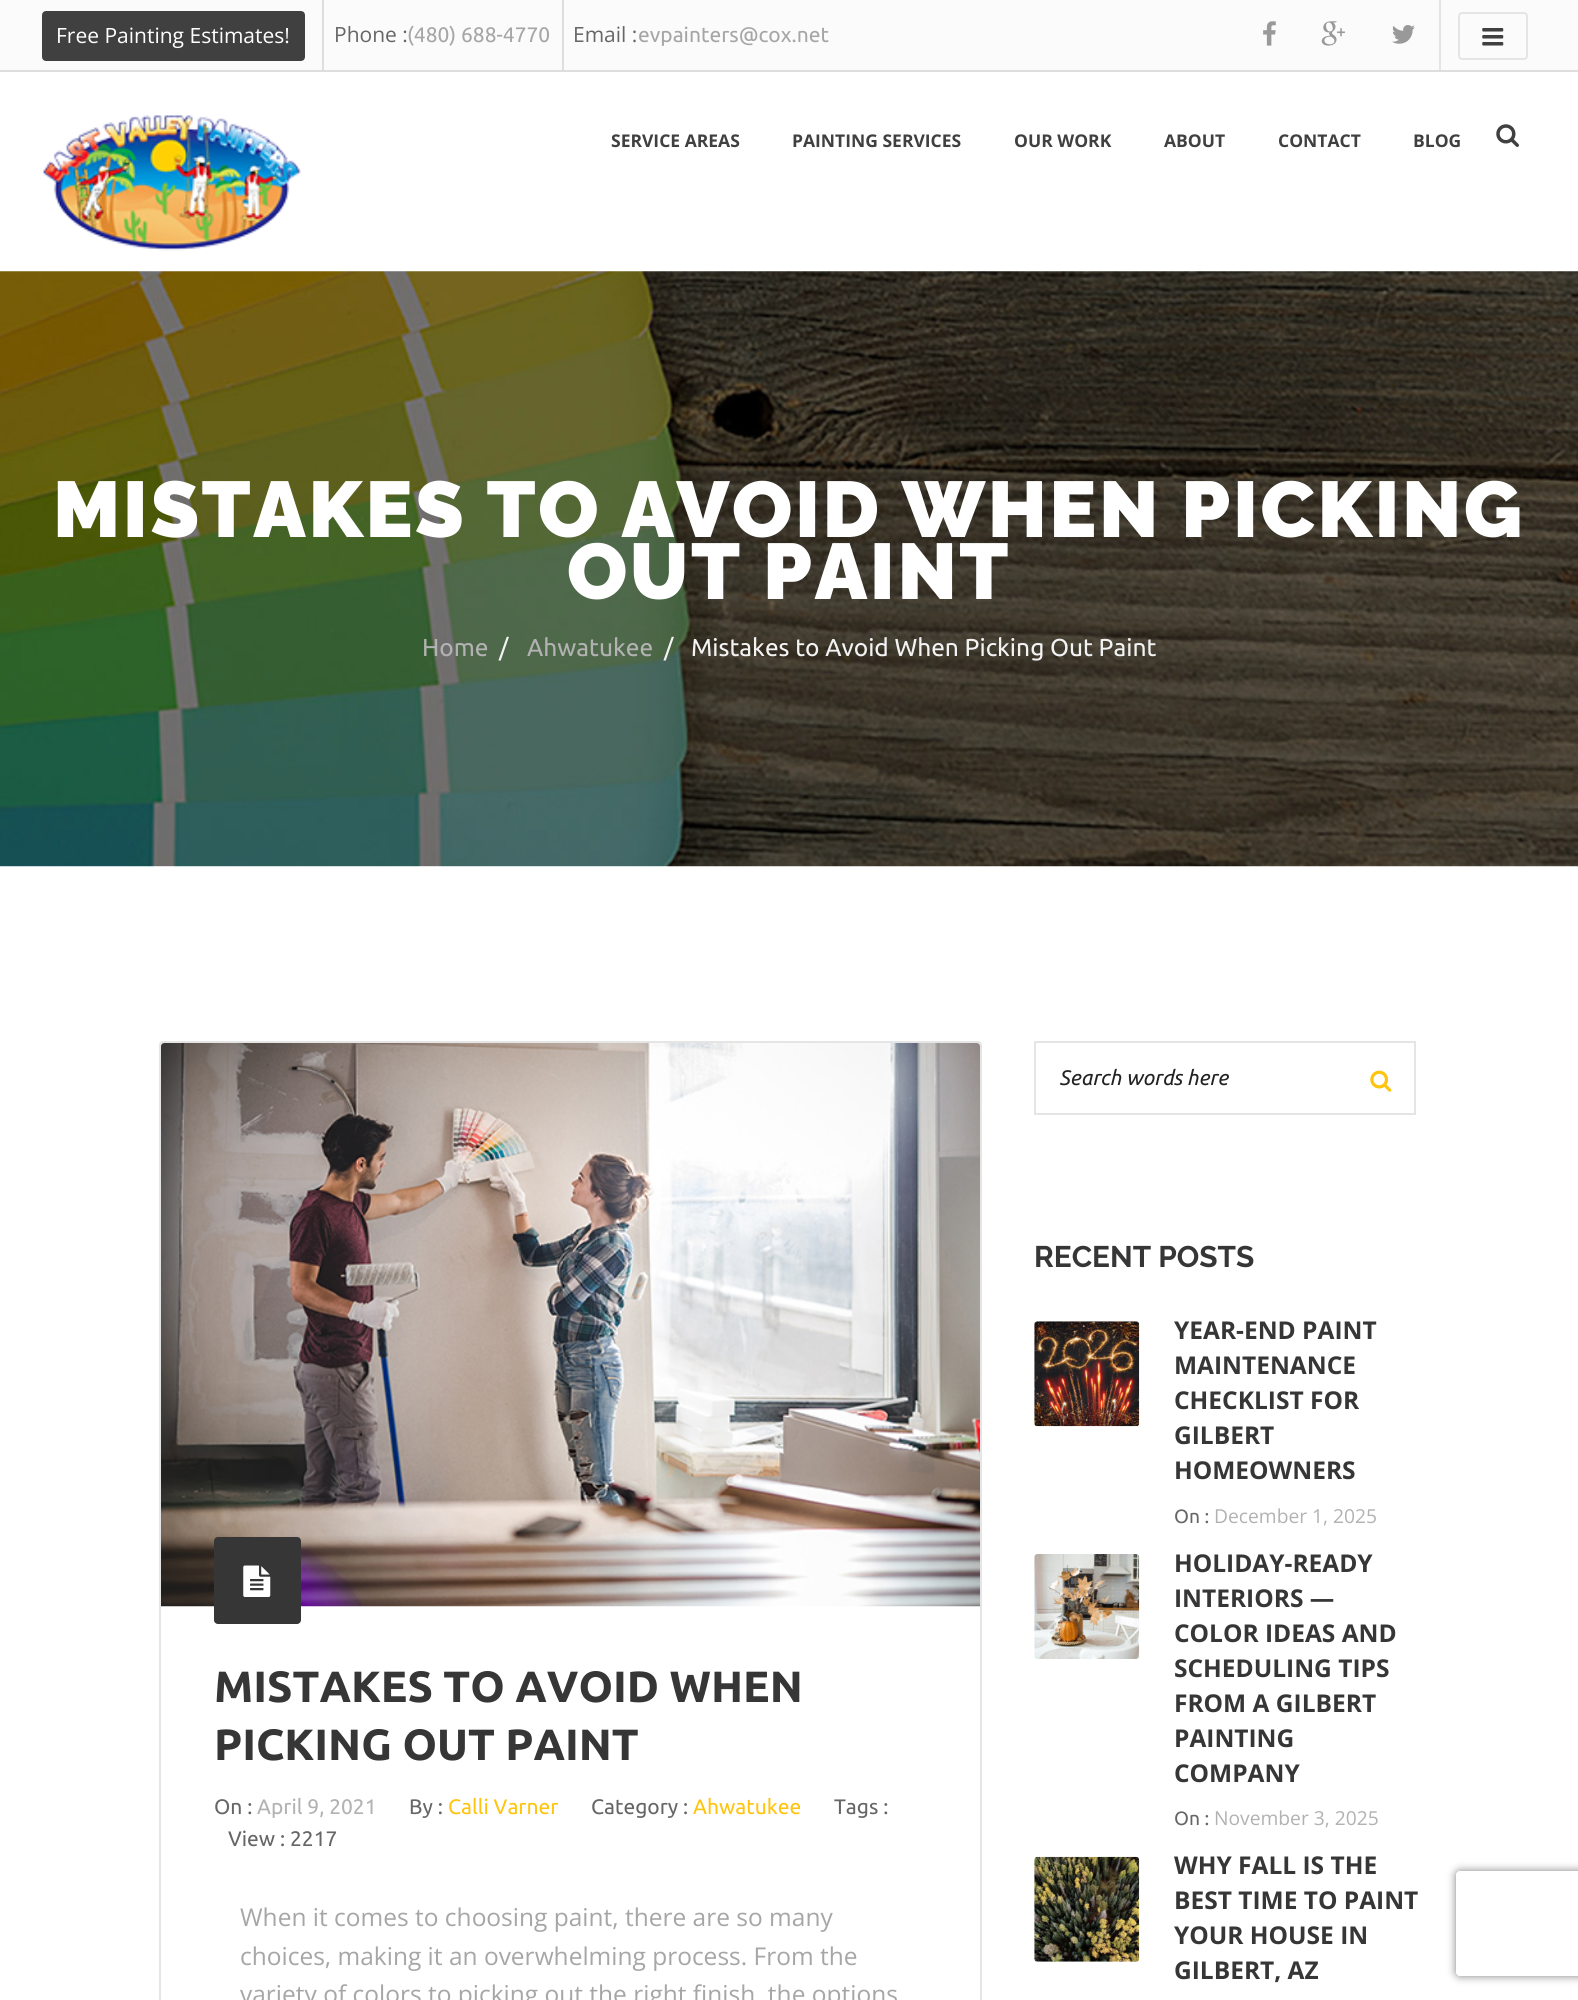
#include <cairo.h>
#include <math.h>
#include <stddef.h>


static void spaced_text(cairo_t *cr, double x, double y, const char *s, double letter, double word) {
    cairo_move_to(cr, x, y);
    while (*s) {
        char ch[5] = {0};
        int n = 0;
        do ch[n++] = *s++; while ((*s & 0xC0) == 0x80);
        cairo_show_text(cr, ch);
        cairo_rel_move_to(cr, letter + word * (*ch == ' '), 0);
    }
}

static void round_rect(cairo_t *cr, double x, double y, double w, double h, double r) {
    cairo_new_sub_path(cr);
    cairo_arc(cr, x + w - r, y + h - r, r, 0, M_PI / 2);
    cairo_arc(cr, x + r, y + h - r, r, M_PI / 2, M_PI);
    cairo_arc(cr, x + r, y + r, r, M_PI, 1.5 * M_PI);
    cairo_arc(cr, x + w - r, y + r, r, 1.5 * M_PI, 2 * M_PI);
    cairo_close_path(cr);
}

static void shadow(cairo_t *cr, double x, double y, double w, double h, double r, double blur, double alpha) {
    cairo_push_group_with_content(cr, CAIRO_CONTENT_ALPHA);
    cairo_set_operator(cr, CAIRO_OPERATOR_SOURCE);
    for (int i = 15; i >= -15 && fmin(w, h) + blur * i / 3 > 0; i -= 2) {
        double e = blur * i / 6;
        cairo_set_source_rgba(cr, 0, 0, 0, alpha * erfc((i - 1) / 8.5) / 2);
        round_rect(cr, x - e, y - e, w + 2 * e, h + 2 * e, fmax(0, fmin(r + e + blur * .6, fmin(w, h) / 2 + e)));
        cairo_fill(cr);
    }
    cairo_pattern_t *soft = cairo_pop_group(cr);
    cairo_mask(cr, soft);
    cairo_pattern_destroy(soft);
}

static void picture(cairo_t *cr, const char *path, double x, double y, double w, double h) {
    cairo_surface_t *image = cairo_image_surface_create_from_png(path);
    cairo_save(cr);
    cairo_set_source_surface(cr, image, x, y);
    cairo_rectangle(cr, x, y, w, h);
    cairo_fill(cr);
    cairo_restore(cr);
    cairo_surface_destroy(image);
}

int main(void) {
    cairo_surface_t *surface = cairo_image_surface_create(CAIRO_FORMAT_RGB24, 1578, 2000);
    cairo_t *cr = cairo_create(surface);
    cairo_font_options_t *options = cairo_font_options_create();
    cairo_font_options_set_hint_metrics(options, CAIRO_HINT_METRICS_OFF);
    cairo_font_options_set_hint_style(options, CAIRO_HINT_STYLE_NONE);
    cairo_set_font_options(cr, options);
    cairo_set_miter_limit(cr, 4);
    cairo_set_source_rgb(cr, 1, 1, 1);
    cairo_paint(cr);
    cairo_set_source_rgb(cr, 0.984, 0.984, 0.984);
    cairo_rectangle(cr, 0, 0, 1578, 70);
    cairo_fill(cr);
    cairo_set_source_rgb(cr, 0.871, 0.871, 0.871);
    cairo_rectangle(cr, 0, 70, 1578, 2);
    cairo_fill(cr);
    cairo_set_source_rgb(cr, 0.251, 0.251, 0.251);
    round_rect(cr, 43, 12, 261, 48, 3);
    cairo_fill_preserve(cr);
    cairo_stroke(cr);
    cairo_select_font_face(cr, "Open Sans", CAIRO_FONT_SLANT_NORMAL, CAIRO_FONT_WEIGHT_NORMAL);
    cairo_set_font_size(cr, 21);
    cairo_set_source_rgb(cr, 1, 1, 1);
    cairo_move_to(cr, 56, 43);
    cairo_show_text(cr, "Free Painting Estimates!");
    cairo_set_source_rgb(cr, 0.871, 0.871, 0.871);
    cairo_rectangle(cr, 322, 0, 2, 70);
    cairo_fill(cr);
    cairo_set_source_rgb(cr, 0.4, 0.4, 0.4);
    cairo_move_to(cr, 334, 42);
    cairo_show_text(cr, "Phone :");
    cairo_select_font_face(cr, "Ubuntu", CAIRO_FONT_SLANT_NORMAL, CAIRO_FONT_WEIGHT_NORMAL);
    cairo_set_source_rgb(cr, 0.651, 0.651, 0.651);
    cairo_move_to(cr, 407, 42);
    cairo_show_text(cr, "(480) 688-4770");
    cairo_set_source_rgb(cr, 0.871, 0.871, 0.871);
    cairo_rectangle(cr, 562, 0, 2, 70);
    cairo_fill(cr);
    cairo_select_font_face(cr, "Open Sans", CAIRO_FONT_SLANT_NORMAL, CAIRO_FONT_WEIGHT_NORMAL);
    cairo_set_source_rgb(cr, 0.4, 0.4, 0.4);
    cairo_move_to(cr, 573, 42);
    cairo_show_text(cr, "Email :");
    cairo_select_font_face(cr, "Ubuntu", CAIRO_FONT_SLANT_NORMAL, CAIRO_FONT_WEIGHT_NORMAL);
    cairo_set_source_rgb(cr, 0.651, 0.651, 0.651);
    cairo_move_to(cr, 638, 42);
    cairo_show_text(cr, "evpainters@cox.net");
    cairo_set_source_rgb(cr, 0.898, 0.898, 0.898);
    cairo_rectangle(cr, 1439, 0, 2, 70);
    cairo_fill(cr);
    picture(cr, "img1.png", 1263, 21, 13, 25);
    picture(cr, "img2.png", 1321, 21, 24, 25);
    picture(cr, "img3.png", 1392, 25, 23, 19);
    round_rect(cr, 1459, 13, 68, 46, 3);
    cairo_stroke(cr);
    picture(cr, "img4.png", 1482, 28, 22, 18);
    picture(cr, "img5.png", 43, 115, 258, 136);
    cairo_select_font_face(cr, "Open Sans", CAIRO_FONT_SLANT_NORMAL, CAIRO_FONT_WEIGHT_BOLD);
    cairo_set_font_size(cr, 17.5);
    cairo_set_source_rgb(cr, 0.251, 0.251, 0.251);
    cairo_move_to(cr, 611, 147);
    cairo_show_text(cr, "SERVICE AREAS");
    cairo_move_to(cr, 792, 147);
    cairo_show_text(cr, "PAINTING SERVICES");
    cairo_move_to(cr, 1014, 147);
    cairo_show_text(cr, "OUR WORK");
    cairo_move_to(cr, 1164, 147);
    cairo_show_text(cr, "ABOUT");
    cairo_move_to(cr, 1278, 147);
    cairo_show_text(cr, "CONTACT");
    cairo_move_to(cr, 1413, 147);
    cairo_show_text(cr, "BLOG");
    picture(cr, "img6.png", 1496, 124, 23, 23);
    picture(cr, "img7.png", 0, 271, 1578, 596);
    cairo_select_font_face(cr, "Raleway Black", CAIRO_FONT_SLANT_NORMAL, CAIRO_FONT_WEIGHT_NORMAL);
    cairo_set_font_size(cr, 78.75);
    cairo_set_source_rgb(cr, 1, 1, 1);
    spaced_text(cr, 53, 537, "MISTAKES TO AVOID WHEN PICKING", 2.6, 0);
    spaced_text(cr, 567, 599, "OUT PAINT", 2.6, 0);
    cairo_select_font_face(cr, "Ubuntu", CAIRO_FONT_SLANT_NORMAL, CAIRO_FONT_WEIGHT_NORMAL);
    cairo_set_font_size(cr, 24.5);
    cairo_set_source_rgb(cr, 0.698, 0.698, 0.698);
    cairo_move_to(cr, 422, 656);
    cairo_show_text(cr, "Home");
    cairo_set_source_rgb(cr, 0.953, 0.953, 0.953);
    cairo_move_to(cr, 499, 656);
    cairo_show_text(cr, "/");
    cairo_set_source_rgb(cr, 0.698, 0.698, 0.698);
    cairo_move_to(cr, 527, 656);
    cairo_show_text(cr, "Ahwatukee");
    cairo_set_source_rgb(cr, 0.953, 0.953, 0.953);
    cairo_move_to(cr, 664, 656);
    cairo_show_text(cr, "/");
    cairo_move_to(cr, 691, 656);
    cairo_show_text(cr, "Mistakes to Avoid When Picking Out Paint");
    round_rect(cr, 160, 1042, 821, 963, 3);
    cairo_set_source_rgb(cr, 0.898, 0.898, 0.898);
    cairo_stroke(cr);
    picture(cr, "img8.png", 161, 1043, 819, 564);
    cairo_set_source_rgb(cr, 0.216, 0.212, 0.212);
    round_rect(cr, 214, 1537, 87, 87, 4);
    cairo_fill(cr);
    picture(cr, "img9.png", 243, 1565, 28, 32);
    cairo_select_font_face(cr, "Ubuntu", CAIRO_FONT_SLANT_NORMAL, CAIRO_FONT_WEIGHT_BOLD);
    cairo_set_font_size(cr, 43.75);
    cairo_move_to(cr, 214, 1702);
    cairo_show_text(cr, "MISTAKES TO AVOID WHEN");
    cairo_move_to(cr, 214, 1760);
    cairo_show_text(cr, "PICKING OUT PAINT");
    cairo_select_font_face(cr, "Ubuntu", CAIRO_FONT_SLANT_NORMAL, CAIRO_FONT_WEIGHT_NORMAL);
    cairo_set_font_size(cr, 21);
    cairo_set_source_rgb(cr, 0.4, 0.4, 0.4);
    cairo_move_to(cr, 214, 1814);
    cairo_show_text(cr, "On :");
    cairo_set_source_rgb(cr, 0.698, 0.698, 0.698);
    cairo_move_to(cr, 257, 1814);
    cairo_show_text(cr, "April 9, 2021");
    cairo_set_source_rgb(cr, 0.4, 0.4, 0.4);
    cairo_move_to(cr, 409, 1814);
    cairo_show_text(cr, "By :");
    cairo_set_source_rgb(cr, 1, 0.769, 0.055);
    cairo_move_to(cr, 448, 1814);
    cairo_show_text(cr, "Calli Varner");
    cairo_set_source_rgb(cr, 0.4, 0.4, 0.4);
    cairo_move_to(cr, 591, 1814);
    cairo_show_text(cr, "Category :");
    cairo_set_source_rgb(cr, 1, 0.769, 0.055);
    cairo_move_to(cr, 693, 1814);
    cairo_show_text(cr, "Ahwatukee");
    cairo_set_source_rgb(cr, 0.4, 0.4, 0.4);
    cairo_move_to(cr, 834, 1814);
    cairo_show_text(cr, "Tags :");
    cairo_move_to(cr, 228, 1846);
    cairo_show_text(cr, "View : 2217");
    cairo_select_font_face(cr, "Open Sans", CAIRO_FONT_SLANT_NORMAL, CAIRO_FONT_WEIGHT_NORMAL);
    cairo_set_font_size(cr, 24.5);
    cairo_set_source_rgb(cr, 0.651, 0.651, 0.651);
    cairo_move_to(cr, 240, 1926);
    cairo_show_text(cr, "When it comes to choosing paint, there are so many");
    cairo_move_to(cr, 240, 1965);
    cairo_show_text(cr, "choices, making it an overwhelming process. From the");
    cairo_move_to(cr, 240, 2003);
    cairo_show_text(cr, "variety of colors to picking out the right finish, the options");
    cairo_set_source_rgb(cr, 0.898, 0.898, 0.898);
    cairo_rectangle(cr, 1034, 1041, 382, 2);
    cairo_fill(cr);
    cairo_rectangle(cr, 1034, 1113, 315, 2);
    cairo_fill(cr);
    cairo_rectangle(cr, 1034, 1041, 2, 74);
    cairo_fill(cr);
    cairo_select_font_face(cr, "Ubuntu", CAIRO_FONT_SLANT_ITALIC, CAIRO_FONT_WEIGHT_NORMAL);
    cairo_set_font_size(cr, 21);
    cairo_set_source_rgb(cr, 0.133, 0.133, 0.133);
    cairo_move_to(cr, 1059, 1085);
    cairo_show_text(cr, "Search words here");
    cairo_set_source_rgb(cr, 0.898, 0.898, 0.898);
    cairo_rectangle(cr, 1414, 1041, 2, 74);
    cairo_fill(cr);
    cairo_rectangle(cr, 1346, 1113, 70, 2);
    cairo_fill(cr);
    picture(cr, "img10.png", 1370, 1070, 22, 22);
    cairo_select_font_face(cr, "Raleway Thin", CAIRO_FONT_SLANT_NORMAL, CAIRO_FONT_WEIGHT_NORMAL);
    cairo_set_font_size(cr, 29.75);
    cairo_set_source_rgb(cr, 0.216, 0.212, 0.212);
    cairo_move_to(cr, 1034, 1267);
    cairo_show_text(cr, "RECENT POSTS");
    picture(cr, "img11.png", 1034, 1321, 106, 106);
    cairo_select_font_face(cr, "Open Sans", CAIRO_FONT_SLANT_NORMAL, CAIRO_FONT_WEIGHT_BOLD);
    cairo_set_font_size(cr, 24.5);
    cairo_move_to(cr, 1174, 1339);
    cairo_show_text(cr, "YEAR-END PAINT");
    cairo_move_to(cr, 1174, 1374);
    cairo_show_text(cr, "MAINTENANCE");
    cairo_move_to(cr, 1174, 1409);
    cairo_show_text(cr, "CHECKLIST FOR");
    cairo_move_to(cr, 1174, 1444);
    cairo_show_text(cr, "GILBERT");
    cairo_move_to(cr, 1174, 1479);
    cairo_show_text(cr, "HOMEOWNERS");
    cairo_select_font_face(cr, "Ubuntu", CAIRO_FONT_SLANT_NORMAL, CAIRO_FONT_WEIGHT_NORMAL);
    cairo_set_font_size(cr, 19.25);
    cairo_set_source_rgb(cr, 0.4, 0.4, 0.4);
    cairo_move_to(cr, 1174, 1523);
    cairo_show_text(cr, "On :");
    cairo_select_font_face(cr, "Open Sans", CAIRO_FONT_SLANT_NORMAL, CAIRO_FONT_WEIGHT_NORMAL);
    cairo_set_source_rgb(cr, 0.698, 0.698, 0.698);
    cairo_move_to(cr, 1214, 1523);
    cairo_show_text(cr, "December 1, 2025");
    picture(cr, "img12.png", 1034, 1554, 106, 105);
    cairo_select_font_face(cr, "Open Sans", CAIRO_FONT_SLANT_NORMAL, CAIRO_FONT_WEIGHT_BOLD);
    cairo_set_font_size(cr, 24.5);
    cairo_set_source_rgb(cr, 0.216, 0.212, 0.212);
    cairo_move_to(cr, 1174, 1572);
    cairo_show_text(cr, "HOLIDAY-READY");
    cairo_move_to(cr, 1174, 1607);
    cairo_show_text(cr, "INTERIORS —");
    cairo_move_to(cr, 1174, 1642);
    cairo_show_text(cr, "COLOR IDEAS AND");
    cairo_move_to(cr, 1174, 1677);
    cairo_show_text(cr, "SCHEDULING TIPS");
    cairo_move_to(cr, 1174, 1712);
    cairo_show_text(cr, "FROM A GILBERT");
    cairo_move_to(cr, 1174, 1747);
    cairo_show_text(cr, "PAINTING");
    cairo_move_to(cr, 1174, 1782);
    cairo_show_text(cr, "COMPANY");
    cairo_select_font_face(cr, "Ubuntu", CAIRO_FONT_SLANT_NORMAL, CAIRO_FONT_WEIGHT_NORMAL);
    cairo_set_font_size(cr, 19.25);
    cairo_set_source_rgb(cr, 0.4, 0.4, 0.4);
    cairo_move_to(cr, 1174, 1825);
    cairo_show_text(cr, "On :");
    cairo_select_font_face(cr, "Open Sans", CAIRO_FONT_SLANT_NORMAL, CAIRO_FONT_WEIGHT_NORMAL);
    cairo_set_source_rgb(cr, 0.698, 0.698, 0.698);
    cairo_move_to(cr, 1214, 1825);
    cairo_show_text(cr, "November 3, 2025");
    picture(cr, "img13.png", 1034, 1856, 106, 106);
    cairo_select_font_face(cr, "Open Sans", CAIRO_FONT_SLANT_NORMAL, CAIRO_FONT_WEIGHT_BOLD);
    cairo_set_font_size(cr, 24.5);
    cairo_set_source_rgb(cr, 0.216, 0.212, 0.212);
    cairo_move_to(cr, 1174, 1874);
    cairo_show_text(cr, "WHY FALL IS THE");
    cairo_move_to(cr, 1174, 1909);
    cairo_show_text(cr, "BEST TIME TO PAINT");
    cairo_move_to(cr, 1174, 1944);
    cairo_show_text(cr, "YOUR HOUSE IN");
    cairo_move_to(cr, 1174, 1979);
    cairo_show_text(cr, "GILBERT, AZ");
    cairo_save(cr);
    cairo_set_fill_rule(cr, CAIRO_FILL_RULE_EVEN_ODD);
    cairo_new_path(cr);
    cairo_move_to(cr, 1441, 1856);
    cairo_line_to(cr, 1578, 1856);
    cairo_line_to(cr, 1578, 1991);
    cairo_line_to(cr, 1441, 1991);
    cairo_close_path(cr);
    cairo_move_to(cr, 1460, 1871);
    cairo_line_to(cr, 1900, 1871);
    cairo_curve_to(cr, 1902, 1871, 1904, 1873, 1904, 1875);
    cairo_line_to(cr, 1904, 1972);
    cairo_curve_to(cr, 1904, 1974, 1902, 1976, 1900, 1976);
    cairo_line_to(cr, 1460, 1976);
    cairo_curve_to(cr, 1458, 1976, 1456, 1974, 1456, 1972);
    cairo_line_to(cr, 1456, 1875);
    cairo_curve_to(cr, 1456, 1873, 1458, 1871, 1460, 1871);
    cairo_close_path(cr);
    cairo_clip(cr);
    cairo_set_source_rgb(cr, 0.502, 0.502, 0.502);
    shadow(cr, 1456, 1871, 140, 105, 4, 4.5, 1);
    cairo_restore(cr);
    cairo_surface_write_to_png(surface, "page.png");
    cairo_font_options_destroy(options);
    cairo_destroy(cr);
    cairo_surface_destroy(surface);
    return 0;
}
